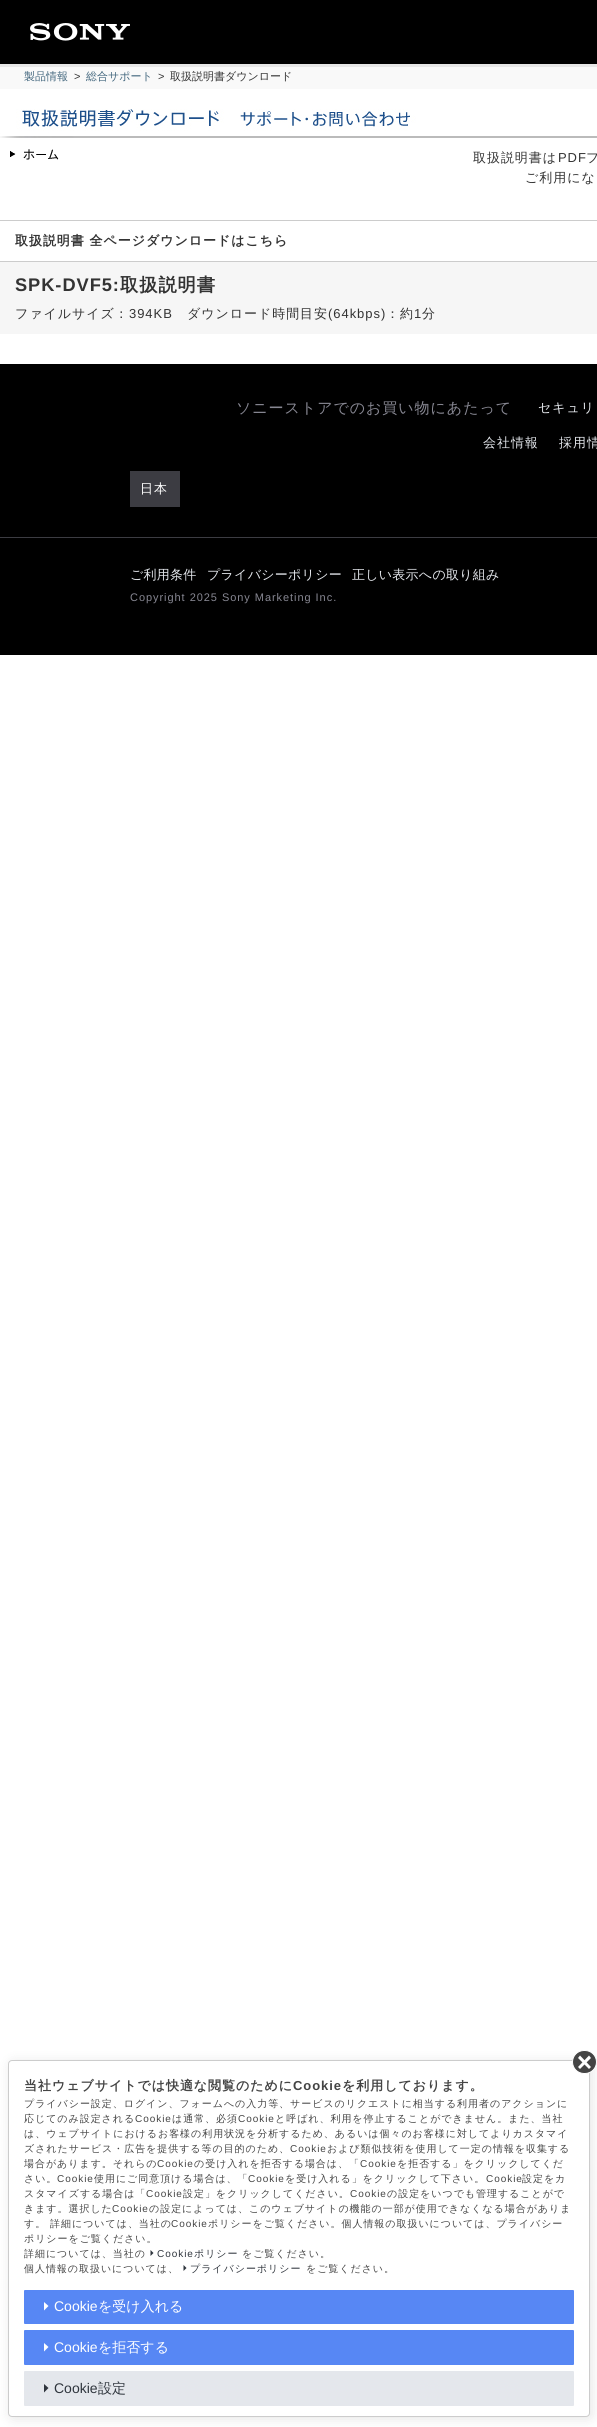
#include <cairo.h>
#include <math.h>
#include <stddef.h>


static void spaced_text(cairo_t *cr, double x, double y, const char *s, double letter, double word) {
    cairo_move_to(cr, x, y);
    while (*s) {
        char ch[5] = {0};
        int n = 0;
        do ch[n++] = *s++; while ((*s & 0xC0) == 0x80);
        cairo_show_text(cr, ch);
        cairo_rel_move_to(cr, letter + word * (*ch == ' '), 0);
    }
}

static void round_rect(cairo_t *cr, double x, double y, double w, double h, double r) {
    cairo_new_sub_path(cr);
    cairo_arc(cr, x + w - r, y + h - r, r, 0, M_PI / 2);
    cairo_arc(cr, x + r, y + h - r, r, M_PI / 2, M_PI);
    cairo_arc(cr, x + r, y + r, r, M_PI, 1.5 * M_PI);
    cairo_arc(cr, x + w - r, y + r, r, 1.5 * M_PI, 2 * M_PI);
    cairo_close_path(cr);
}

static void shadow(cairo_t *cr, double x, double y, double w, double h, double r, double blur, double alpha) {
    cairo_push_group_with_content(cr, CAIRO_CONTENT_ALPHA);
    cairo_set_operator(cr, CAIRO_OPERATOR_SOURCE);
    for (int i = 15; i >= -15 && fmin(w, h) + blur * i / 3 > 0; i -= 2) {
        double e = blur * i / 6;
        cairo_set_source_rgba(cr, 0, 0, 0, alpha * erfc((i - 1) / 8.5) / 2);
        round_rect(cr, x - e, y - e, w + 2 * e, h + 2 * e, fmax(0, fmin(r + e + blur * .6, fmin(w, h) / 2 + e)));
        cairo_fill(cr);
    }
    cairo_pattern_t *soft = cairo_pop_group(cr);
    cairo_mask(cr, soft);
    cairo_pattern_destroy(soft);
}

static void picture(cairo_t *cr, const char *path, double x, double y, double w, double h) {
    cairo_surface_t *image = cairo_image_surface_create_from_png(path);
    cairo_save(cr);
    cairo_set_source_surface(cr, image, x, y);
    cairo_rectangle(cr, x, y, w, h);
    cairo_fill(cr);
    cairo_restore(cr);
    cairo_surface_destroy(image);
}

int main(void) {
    cairo_surface_t *surface = cairo_image_surface_create(CAIRO_FORMAT_RGB24, 597, 2427);
    cairo_t *cr = cairo_create(surface);
    cairo_font_options_t *options = cairo_font_options_create();
    cairo_font_options_set_hint_metrics(options, CAIRO_HINT_METRICS_OFF);
    cairo_font_options_set_hint_style(options, CAIRO_HINT_STYLE_NONE);
    cairo_set_font_options(cr, options);
    cairo_set_miter_limit(cr, 4);
    cairo_set_source_rgb(cr, 1, 1, 1);
    cairo_paint(cr);
    cairo_set_source_rgb(cr, 0, 0, 0);
    cairo_rectangle(cr, 0, 0, 597, 64);
    cairo_fill(cr);
    picture(cr, "img1.png", 30, 23, 100, 18);
    cairo_set_source_rgb(cr, 0.973, 0.973, 0.973);
    cairo_rectangle(cr, 0, 67, 597, 22);
    cairo_fill(cr);
    cairo_set_source_rgb(cr, 0.906, 0.906, 0.906);
    cairo_rectangle(cr, 0, 64, 597, 3);
    cairo_fill(cr);
    cairo_select_font_face(cr, "WenQuanYi Zen Hei Medium", CAIRO_FONT_SLANT_NORMAL, CAIRO_FONT_WEIGHT_NORMAL);
    cairo_set_font_size(cr, 11);
    cairo_set_source_rgb(cr, 0.263, 0.404, 0.494);
    cairo_move_to(cr, 24, 80);
    cairo_show_text(cr, "製品情報");
    cairo_select_font_face(cr, "Liberation Sans", CAIRO_FONT_SLANT_NORMAL, CAIRO_FONT_WEIGHT_NORMAL);
    cairo_set_source_rgb(cr, 0.2, 0.2, 0.2);
    cairo_move_to(cr, 74, 80);
    cairo_show_text(cr, ">");
    cairo_select_font_face(cr, "WenQuanYi Zen Hei Medium", CAIRO_FONT_SLANT_NORMAL, CAIRO_FONT_WEIGHT_NORMAL);
    cairo_set_source_rgb(cr, 0.263, 0.404, 0.494);
    cairo_move_to(cr, 86, 80);
    cairo_show_text(cr, "総合サポート");
    cairo_select_font_face(cr, "Liberation Sans", CAIRO_FONT_SLANT_NORMAL, CAIRO_FONT_WEIGHT_NORMAL);
    cairo_set_source_rgb(cr, 0.2, 0.2, 0.2);
    cairo_move_to(cr, 158, 80);
    cairo_show_text(cr, ">");
    cairo_select_font_face(cr, "WenQuanYi Zen Hei Medium", CAIRO_FONT_SLANT_NORMAL, CAIRO_FONT_WEIGHT_NORMAL);
    cairo_move_to(cr, 170, 80);
    cairo_show_text(cr, "取扱説明書ダウンロード");
    picture(cr, "img2.png", 0, 109, 597, 29);
    picture(cr, "img3.png", 10, 149, 49, 11);
    cairo_set_font_size(cr, 13);
    spaced_text(cr, 473, 162, "取扱説明書は", 0.95, 0);
    cairo_select_font_face(cr, "Liberation Sans", CAIRO_FONT_SLANT_NORMAL, CAIRO_FONT_WEIGHT_NORMAL);
    spaced_text(cr, 558, 162, "PDF", 0.95, 0);
    cairo_select_font_face(cr, "WenQuanYi Zen Hei Medium", CAIRO_FONT_SLANT_NORMAL, CAIRO_FONT_WEIGHT_NORMAL);
    spaced_text(cr, 586, 162, "フ", 0.95, 0);
    spaced_text(cr, 525, 182, "ご利用にな", 0.95, 0);
    cairo_set_source_rgb(cr, 0.8, 0.8, 0.8);
    cairo_rectangle(cr, 0, 220, 597, 1);
    cairo_fill(cr);
    cairo_select_font_face(cr, "WenQuanYi Zen Hei", CAIRO_FONT_SLANT_NORMAL, CAIRO_FONT_WEIGHT_BOLD);
    cairo_set_source_rgb(cr, 0.2, 0.2, 0.2);
    spaced_text(cr, 15, 245, "取扱説明書 全ページダウンロードはこちら", 0.95, 0);
    cairo_set_source_rgb(cr, 0.961, 0.961, 0.961);
    cairo_rectangle(cr, 593, 261, 4, 73);
    cairo_fill(cr);
    cairo_set_source_rgb(cr, 0.8, 0.8, 0.8);
    cairo_rectangle(cr, 0, 261, 597, 1);
    cairo_fill(cr);
    cairo_set_source_rgb(cr, 0.961, 0.961, 0.961);
    cairo_rectangle(cr, 0, 262, 593, 72);
    cairo_fill(cr);
    cairo_select_font_face(cr, "Liberation Sans", CAIRO_FONT_SLANT_NORMAL, CAIRO_FONT_WEIGHT_BOLD);
    cairo_set_font_size(cr, 18.25);
    cairo_set_source_rgb(cr, 0.2, 0.2, 0.2);
    spaced_text(cr, 15, 291, "SPK-DVF5:", 0.95, 0);
    cairo_select_font_face(cr, "WenQuanYi Zen Hei", CAIRO_FONT_SLANT_NORMAL, CAIRO_FONT_WEIGHT_BOLD);
    spaced_text(cr, 120, 291, "取扱説明書", 0.95, 0);
    cairo_select_font_face(cr, "WenQuanYi Zen Hei Medium", CAIRO_FONT_SLANT_NORMAL, CAIRO_FONT_WEIGHT_NORMAL);
    cairo_set_font_size(cr, 13);
    spaced_text(cr, 15, 318, "ファイルサイズ：", 0.95, 0);
    cairo_select_font_face(cr, "Liberation Sans", CAIRO_FONT_SLANT_NORMAL, CAIRO_FONT_WEIGHT_NORMAL);
    spaced_text(cr, 129, 318, "394KB", 0.95, 0);
    cairo_select_font_face(cr, "WenQuanYi Zen Hei Medium", CAIRO_FONT_SLANT_NORMAL, CAIRO_FONT_WEIGHT_NORMAL);
    spaced_text(cr, 187, 318, "ダウンロード時間目安", 0.95, 0);
    cairo_select_font_face(cr, "Liberation Sans", CAIRO_FONT_SLANT_NORMAL, CAIRO_FONT_WEIGHT_NORMAL);
    spaced_text(cr, 328, 318, "(64kbps)", 0.95, 0);
    cairo_select_font_face(cr, "WenQuanYi Zen Hei Medium", CAIRO_FONT_SLANT_NORMAL, CAIRO_FONT_WEIGHT_NORMAL);
    spaced_text(cr, 386, 318, "：約", 0.95, 0);
    cairo_select_font_face(cr, "Liberation Sans", CAIRO_FONT_SLANT_NORMAL, CAIRO_FONT_WEIGHT_NORMAL);
    spaced_text(cr, 414, 318, "1", 0.95, 0);
    cairo_select_font_face(cr, "WenQuanYi Zen Hei Medium", CAIRO_FONT_SLANT_NORMAL, CAIRO_FONT_WEIGHT_NORMAL);
    spaced_text(cr, 422, 318, "分", 0.95, 0);
    cairo_set_source_rgb(cr, 0, 0, 0);
    cairo_rectangle(cr, 0, 364, 597, 291);
    cairo_fill(cr);
    cairo_set_font_size(cr, 15);
    cairo_set_source_rgb(cr, 0.529, 0.529, 0.573);
    spaced_text(cr, 236, 413, "ソニーストアでのお買い物にあたって", 0.95, 0);
    cairo_set_font_size(cr, 13);
    cairo_set_source_rgb(cr, 0.894, 0.906, 0.922);
    spaced_text(cr, 538, 412, "セキュリ", 0.95, 0);
    spaced_text(cr, 483, 447, "会社情報", 0.95, 0);
    spaced_text(cr, 559, 447, "採用情", 0.95, 0);
    cairo_set_source_rgb(cr, 0.235, 0.235, 0.259);
    cairo_rectangle(cr, 130, 471, 50, 36);
    cairo_fill(cr);
    cairo_set_source_rgb(cr, 1, 1, 1);
    spaced_text(cr, 140, 493, "日本", 0.95, 0);
    cairo_set_source_rgb(cr, 0.235, 0.235, 0.259);
    cairo_rectangle(cr, 0, 537, 597, 1);
    cairo_fill(cr);
    cairo_set_source_rgb(cr, 0.894, 0.906, 0.922);
    spaced_text(cr, 130, 579, "ご利用条件", 0.25, 0);
    spaced_text(cr, 207, 579, "プライバシーポリシー", 0.25, 0);
    spaced_text(cr, 352, 579, "正しい表示への取り組み", 0.25, 0);
    cairo_select_font_face(cr, "Liberation Sans", CAIRO_FONT_SLANT_NORMAL, CAIRO_FONT_WEIGHT_NORMAL);
    cairo_set_font_size(cr, 11);
    cairo_set_source_rgb(cr, 0.529, 0.529, 0.573);
    spaced_text(cr, 130, 601, "Copyright 2025 Sony Marketing Inc.", 0.95, 0);
    cairo_set_source_rgb(cr, 0, 0, 0);
    shadow(cr, 10, 2062, 582, 357, 4, 6, 0.1);
    cairo_set_source_rgb(cr, 1, 1, 1);
    round_rect(cr, 8.5, 2060.5, 581, 356, 3.5);
    cairo_fill_preserve(cr);
    cairo_set_source_rgb(cr, 0.8, 0.8, 0.8);
    cairo_set_line_width(cr, 1);
    cairo_stroke(cr);
    cairo_set_source_rgb(cr, 0.267, 0.267, 0.267);
    round_rect(cr, 572.5, 2050.5, 24, 23, 11.5);
    cairo_fill_preserve(cr);
    cairo_set_source_rgb(cr, 1, 1, 1);
    cairo_stroke(cr);
    cairo_new_path(cr);
    cairo_move_to(cr, 578, 2067);
    cairo_line_to(cr, 589, 2055.5);
    cairo_line_to(cr, 591, 2058);
    cairo_line_to(cr, 580, 2069);
    cairo_close_path(cr);
    cairo_fill(cr);
    cairo_new_path(cr);
    cairo_move_to(cr, 580, 2055.5);
    cairo_line_to(cr, 591, 2067);
    cairo_line_to(cr, 589, 2069);
    cairo_line_to(cr, 578, 2058);
    cairo_close_path(cr);
    cairo_fill(cr);
    cairo_select_font_face(cr, "WenQuanYi Zen Hei", CAIRO_FONT_SLANT_NORMAL, CAIRO_FONT_WEIGHT_BOLD);
    cairo_set_font_size(cr, 13);
    cairo_set_source_rgb(cr, 0.267, 0.267, 0.267);
    spaced_text(cr, 24, 2090, "当社ウェブサイトでは快適な閲覧のために", 0.95, 0);
    cairo_select_font_face(cr, "Liberation Sans", CAIRO_FONT_SLANT_NORMAL, CAIRO_FONT_WEIGHT_BOLD);
    spaced_text(cr, 293, 2090, "Cookie", 0.95, 0);
    cairo_select_font_face(cr, "WenQuanYi Zen Hei", CAIRO_FONT_SLANT_NORMAL, CAIRO_FONT_WEIGHT_BOLD);
    spaced_text(cr, 342, 2090, "を利用しております。", 0.95, 0);
    cairo_select_font_face(cr, "WenQuanYi Zen Hei Medium", CAIRO_FONT_SLANT_NORMAL, CAIRO_FONT_WEIGHT_NORMAL);
    cairo_set_font_size(cr, 10);
    spaced_text(cr, 24, 2107, "プライバシー設定、ログイン、フォームへの入力等、サービスのリクエストに相当する利用者のアクションに", 0.95, 0);
    spaced_text(cr, 24, 2122, "応じてのみ設定される", 0.95, 0);
    cairo_select_font_face(cr, "Liberation Sans", CAIRO_FONT_SLANT_NORMAL, CAIRO_FONT_WEIGHT_NORMAL);
    spaced_text(cr, 135, 2122, "Cookie", 0.95, 0);
    cairo_select_font_face(cr, "WenQuanYi Zen Hei Medium", CAIRO_FONT_SLANT_NORMAL, CAIRO_FONT_WEIGHT_NORMAL);
    spaced_text(cr, 172, 2122, "は通常、必須", 0.95, 0);
    cairo_select_font_face(cr, "Liberation Sans", CAIRO_FONT_SLANT_NORMAL, CAIRO_FONT_WEIGHT_NORMAL);
    spaced_text(cr, 238, 2122, "Cookie", 0.95, 0);
    cairo_select_font_face(cr, "WenQuanYi Zen Hei Medium", CAIRO_FONT_SLANT_NORMAL, CAIRO_FONT_WEIGHT_NORMAL);
    spaced_text(cr, 275, 2122, "と呼ばれ、利用を停止することができません。また、当社", 0.95, 0);
    spaced_text(cr, 24, 2137, "は、ウェブサイトにおけるお客様の利用状況を分析するため、あるいは個々のお客様に対してよりカスタマイ", 0.95, 0);
    spaced_text(cr, 24, 2152, "ズされたサービス・広告を提供する等の目的のため、", 0.95, 0);
    cairo_select_font_face(cr, "Liberation Sans", CAIRO_FONT_SLANT_NORMAL, CAIRO_FONT_WEIGHT_NORMAL);
    spaced_text(cr, 290, 2152, "Cookie", 0.95, 0);
    cairo_select_font_face(cr, "WenQuanYi Zen Hei Medium", CAIRO_FONT_SLANT_NORMAL, CAIRO_FONT_WEIGHT_NORMAL);
    spaced_text(cr, 327, 2152, "および類似技術を使用して一定の情報を収集する", 0.95, 0);
    spaced_text(cr, 24, 2167, "場合があります。それらの", 0.95, 0);
    cairo_select_font_face(cr, "Liberation Sans", CAIRO_FONT_SLANT_NORMAL, CAIRO_FONT_WEIGHT_NORMAL);
    spaced_text(cr, 157, 2167, "Cookie", 0.95, 0);
    cairo_select_font_face(cr, "WenQuanYi Zen Hei Medium", CAIRO_FONT_SLANT_NORMAL, CAIRO_FONT_WEIGHT_NORMAL);
    spaced_text(cr, 194, 2167, "の受け入れを拒否する場合は、「", 0.95, 0);
    cairo_select_font_face(cr, "Liberation Sans", CAIRO_FONT_SLANT_NORMAL, CAIRO_FONT_WEIGHT_NORMAL);
    spaced_text(cr, 360, 2167, "Cookie", 0.95, 0);
    cairo_select_font_face(cr, "WenQuanYi Zen Hei Medium", CAIRO_FONT_SLANT_NORMAL, CAIRO_FONT_WEIGHT_NORMAL);
    spaced_text(cr, 397, 2167, "を拒否する」をクリックしてくだ", 0.95, 0);
    spaced_text(cr, 24, 2182, "さい。", 0.95, 0);
    cairo_select_font_face(cr, "Liberation Sans", CAIRO_FONT_SLANT_NORMAL, CAIRO_FONT_WEIGHT_NORMAL);
    spaced_text(cr, 57, 2182, "Cookie", 0.95, 0);
    cairo_select_font_face(cr, "WenQuanYi Zen Hei Medium", CAIRO_FONT_SLANT_NORMAL, CAIRO_FONT_WEIGHT_NORMAL);
    spaced_text(cr, 94, 2182, "使用にご同意頂ける場合は、「", 0.95, 0);
    cairo_select_font_face(cr, "Liberation Sans", CAIRO_FONT_SLANT_NORMAL, CAIRO_FONT_WEIGHT_NORMAL);
    spaced_text(cr, 248, 2182, "Cookie", 0.95, 0);
    cairo_select_font_face(cr, "WenQuanYi Zen Hei Medium", CAIRO_FONT_SLANT_NORMAL, CAIRO_FONT_WEIGHT_NORMAL);
    spaced_text(cr, 285, 2182, "を受け入れる」をクリックして下さい。", 0.95, 0);
    cairo_select_font_face(cr, "Liberation Sans", CAIRO_FONT_SLANT_NORMAL, CAIRO_FONT_WEIGHT_NORMAL);
    spaced_text(cr, 486, 2182, "Cookie", 0.95, 0);
    cairo_select_font_face(cr, "WenQuanYi Zen Hei Medium", CAIRO_FONT_SLANT_NORMAL, CAIRO_FONT_WEIGHT_NORMAL);
    spaced_text(cr, 522, 2182, "設定をカ", 0.95, 0);
    spaced_text(cr, 24, 2197, "スタマイズする場合は「", 0.95, 0);
    cairo_select_font_face(cr, "Liberation Sans", CAIRO_FONT_SLANT_NORMAL, CAIRO_FONT_WEIGHT_NORMAL);
    spaced_text(cr, 146, 2197, "Cookie", 0.95, 0);
    cairo_select_font_face(cr, "WenQuanYi Zen Hei Medium", CAIRO_FONT_SLANT_NORMAL, CAIRO_FONT_WEIGHT_NORMAL);
    spaced_text(cr, 183, 2197, "設定」をクリックしてください。", 0.95, 0);
    cairo_select_font_face(cr, "Liberation Sans", CAIRO_FONT_SLANT_NORMAL, CAIRO_FONT_WEIGHT_NORMAL);
    spaced_text(cr, 350, 2197, "Cookie", 0.95, 0);
    cairo_select_font_face(cr, "WenQuanYi Zen Hei Medium", CAIRO_FONT_SLANT_NORMAL, CAIRO_FONT_WEIGHT_NORMAL);
    spaced_text(cr, 387, 2197, "の設定をいつでも管理することがで", 0.95, 0);
    spaced_text(cr, 24, 2212, "きます。選択した", 0.95, 0);
    cairo_select_font_face(cr, "Liberation Sans", CAIRO_FONT_SLANT_NORMAL, CAIRO_FONT_WEIGHT_NORMAL);
    spaced_text(cr, 112, 2212, "Cookie", 0.95, 0);
    cairo_select_font_face(cr, "WenQuanYi Zen Hei Medium", CAIRO_FONT_SLANT_NORMAL, CAIRO_FONT_WEIGHT_NORMAL);
    spaced_text(cr, 149, 2212, "の設定によっては、このウェブサイトの機能の一部が使用できなくなる場合がありま", 0.95, 0);
    spaced_text(cr, 24, 2227, "す。 詳細については、当社の", 0.95, 0);
    cairo_select_font_face(cr, "Liberation Sans", CAIRO_FONT_SLANT_NORMAL, CAIRO_FONT_WEIGHT_NORMAL);
    spaced_text(cr, 171, 2227, "Cookie", 0.95, 0);
    cairo_select_font_face(cr, "WenQuanYi Zen Hei Medium", CAIRO_FONT_SLANT_NORMAL, CAIRO_FONT_WEIGHT_NORMAL);
    spaced_text(cr, 208, 2227, "ポリシーをご覧ください。個人情報の取扱いについては、プライバシー", 0.95, 0);
    spaced_text(cr, 24, 2242, "ポリシーをご覧ください。", 0.95, 0);
    spaced_text(cr, 24, 2257, "詳細については、当社の", 0.95, 0);
    cairo_set_source_rgb(cr, 0.184, 0.208, 0.239);
    cairo_new_path(cr);
    cairo_move_to(cr, 150.5, 2250);
    cairo_line_to(cr, 153.5, 2253);
    cairo_line_to(cr, 150.5, 2256);
    cairo_close_path(cr);
    cairo_fill(cr);
    cairo_select_font_face(cr, "Liberation Sans", CAIRO_FONT_SLANT_NORMAL, CAIRO_FONT_WEIGHT_NORMAL);
    spaced_text(cr, 157, 2257, "Cookie", 0.95, 0);
    cairo_select_font_face(cr, "WenQuanYi Zen Hei Medium", CAIRO_FONT_SLANT_NORMAL, CAIRO_FONT_WEIGHT_NORMAL);
    spaced_text(cr, 194, 2257, "ポリシー", 0.95, 0);
    cairo_set_source_rgb(cr, 0.267, 0.267, 0.267);
    spaced_text(cr, 242, 2257, "をご覧ください。", 0.95, 0);
    spaced_text(cr, 24, 2272, "個人情報の取扱いについては、", 0.95, 0);
    cairo_set_source_rgb(cr, 0.184, 0.208, 0.239);
    cairo_new_path(cr);
    cairo_move_to(cr, 183.5, 2265);
    cairo_line_to(cr, 186.5, 2268);
    cairo_line_to(cr, 183.5, 2271);
    cairo_close_path(cr);
    cairo_fill(cr);
    spaced_text(cr, 190, 2272, "プライバシーポリシー", 0.95, 0);
    cairo_set_source_rgb(cr, 0.267, 0.267, 0.267);
    spaced_text(cr, 306, 2272, "をご覧ください。", 0.95, 0);
    cairo_set_source_rgb(cr, 0.341, 0.529, 0.957);
    round_rect(cr, 24, 2290, 550, 34, 1);
    cairo_fill(cr);
    cairo_set_source_rgb(cr, 1, 1, 1);
    cairo_new_path(cr);
    cairo_move_to(cr, 44, 2302);
    cairo_line_to(cr, 48.5, 2306);
    cairo_line_to(cr, 44, 2310.5);
    cairo_close_path(cr);
    cairo_fill(cr);
    cairo_select_font_face(cr, "Liberation Sans", CAIRO_FONT_SLANT_NORMAL, CAIRO_FONT_WEIGHT_NORMAL);
    cairo_set_font_size(cr, 14);
    cairo_move_to(cr, 54, 2311);
    cairo_show_text(cr, "Cookie");
    cairo_select_font_face(cr, "WenQuanYi Zen Hei Medium", CAIRO_FONT_SLANT_NORMAL, CAIRO_FONT_WEIGHT_NORMAL);
    cairo_move_to(cr, 98, 2311);
    cairo_show_text(cr, "を受け入れる");
    cairo_set_source_rgb(cr, 0.341, 0.529, 0.957);
    round_rect(cr, 24, 2330, 550, 35, 1);
    cairo_fill(cr);
    cairo_set_source_rgb(cr, 1, 1, 1);
    cairo_new_path(cr);
    cairo_move_to(cr, 44, 2343);
    cairo_line_to(cr, 48.5, 2347);
    cairo_line_to(cr, 44, 2351.5);
    cairo_close_path(cr);
    cairo_fill(cr);
    cairo_select_font_face(cr, "Liberation Sans", CAIRO_FONT_SLANT_NORMAL, CAIRO_FONT_WEIGHT_NORMAL);
    cairo_move_to(cr, 54, 2352);
    cairo_show_text(cr, "Cookie");
    cairo_select_font_face(cr, "WenQuanYi Zen Hei Medium", CAIRO_FONT_SLANT_NORMAL, CAIRO_FONT_WEIGHT_NORMAL);
    cairo_move_to(cr, 98, 2352);
    cairo_show_text(cr, "を拒否する");
    cairo_set_source_rgb(cr, 0.894, 0.906, 0.925);
    round_rect(cr, 24, 2371, 550, 35, 1);
    cairo_fill(cr);
    cairo_set_source_rgb(cr, 0.184, 0.208, 0.239);
    cairo_new_path(cr);
    cairo_move_to(cr, 44, 2384);
    cairo_line_to(cr, 48.5, 2388);
    cairo_line_to(cr, 44, 2392.5);
    cairo_close_path(cr);
    cairo_fill(cr);
    cairo_select_font_face(cr, "Liberation Sans", CAIRO_FONT_SLANT_NORMAL, CAIRO_FONT_WEIGHT_NORMAL);
    cairo_move_to(cr, 54, 2393);
    cairo_show_text(cr, "Cookie");
    cairo_select_font_face(cr, "WenQuanYi Zen Hei Medium", CAIRO_FONT_SLANT_NORMAL, CAIRO_FONT_WEIGHT_NORMAL);
    cairo_move_to(cr, 98, 2393);
    cairo_show_text(cr, "設定");
    cairo_surface_write_to_png(surface, "page.png");
    cairo_font_options_destroy(options);
    cairo_destroy(cr);
    cairo_surface_destroy(surface);
    return 0;
}
